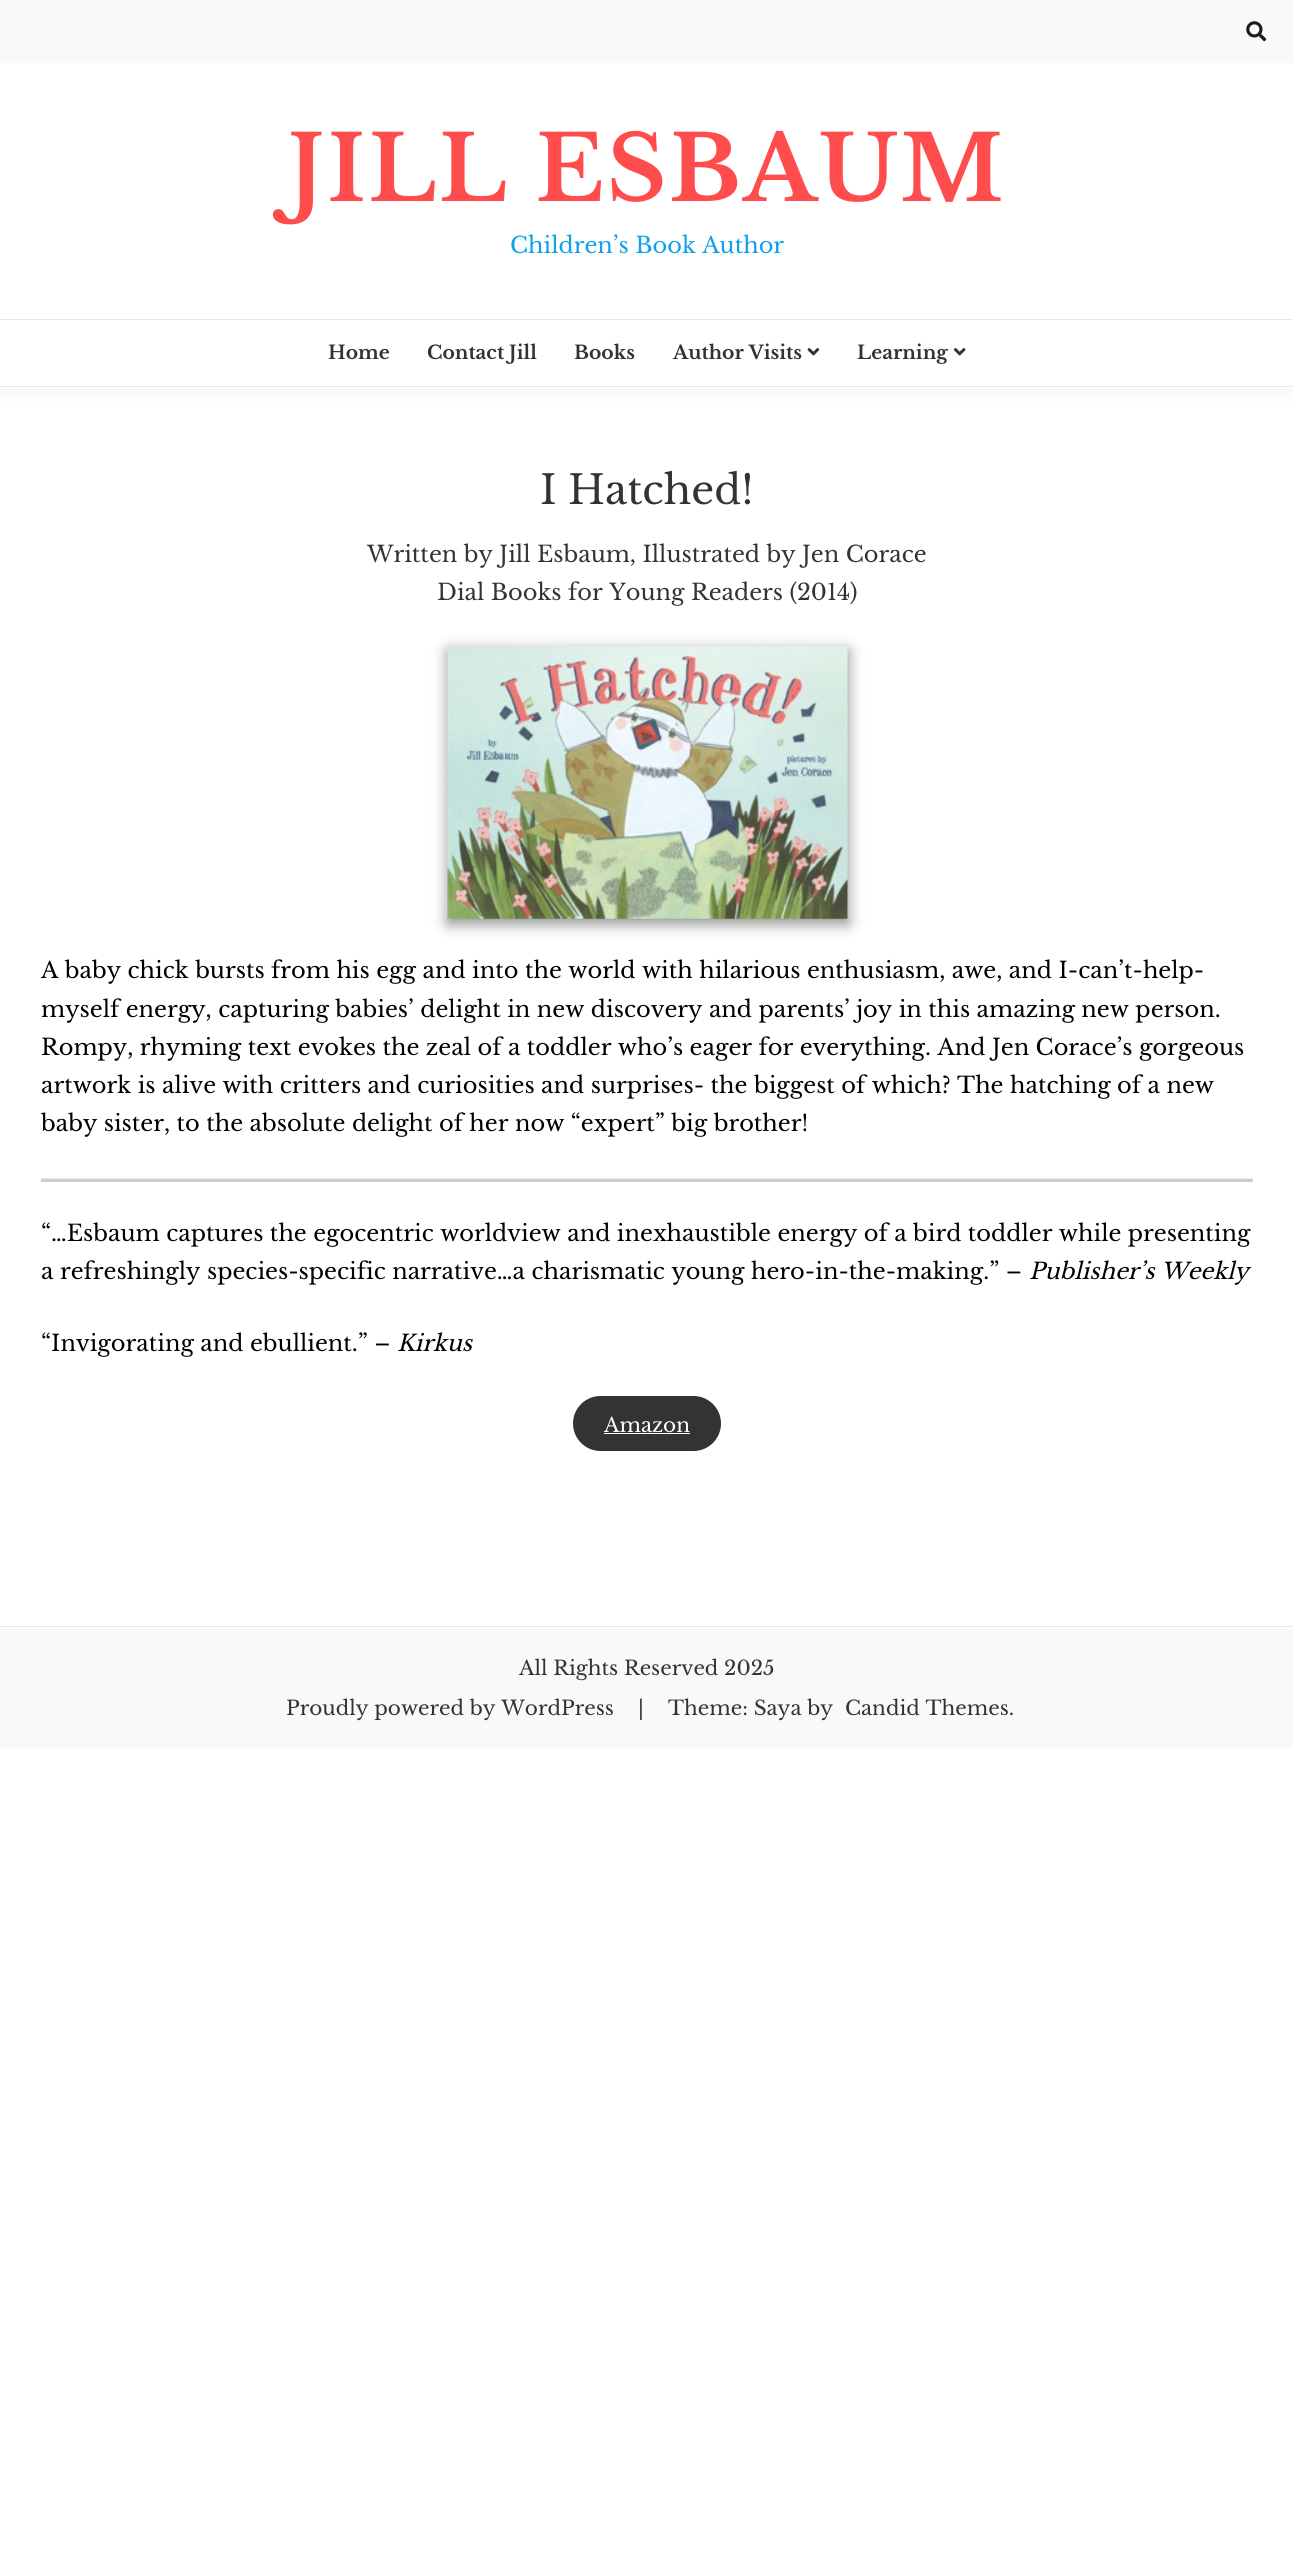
#include <cairo.h>
#include <math.h>
#include <stddef.h>


static void spaced_text(cairo_t *cr, double x, double y, const char *s, double letter, double word) {
    cairo_move_to(cr, x, y);
    while (*s) {
        char ch[5] = {0};
        int n = 0;
        do ch[n++] = *s++; while ((*s & 0xC0) == 0x80);
        cairo_show_text(cr, ch);
        cairo_rel_move_to(cr, letter + word * (*ch == ' '), 0);
    }
}

static void round_rect(cairo_t *cr, double x, double y, double w, double h, double r) {
    cairo_new_sub_path(cr);
    cairo_arc(cr, x + w - r, y + h - r, r, 0, M_PI / 2);
    cairo_arc(cr, x + r, y + h - r, r, M_PI / 2, M_PI);
    cairo_arc(cr, x + r, y + r, r, M_PI, 1.5 * M_PI);
    cairo_arc(cr, x + w - r, y + r, r, 1.5 * M_PI, 2 * M_PI);
    cairo_close_path(cr);
}

static void shadow(cairo_t *cr, double x, double y, double w, double h, double r, double blur, double alpha) {
    cairo_push_group_with_content(cr, CAIRO_CONTENT_ALPHA);
    cairo_set_operator(cr, CAIRO_OPERATOR_SOURCE);
    for (int i = 15; i >= -15 && fmin(w, h) + blur * i / 3 > 0; i -= 2) {
        double e = blur * i / 6;
        cairo_set_source_rgba(cr, 0, 0, 0, alpha * erfc((i - 1) / 8.5) / 2);
        round_rect(cr, x - e, y - e, w + 2 * e, h + 2 * e, fmax(0, fmin(r + e + blur * .6, fmin(w, h) / 2 + e)));
        cairo_fill(cr);
    }
    cairo_pattern_t *soft = cairo_pop_group(cr);
    cairo_mask(cr, soft);
    cairo_pattern_destroy(soft);
}

static void picture(cairo_t *cr, const char *path, double x, double y, double w, double h) {
    cairo_surface_t *image = cairo_image_surface_create_from_png(path);
    cairo_save(cr);
    cairo_set_source_surface(cr, image, x, y);
    cairo_rectangle(cr, x, y, w, h);
    cairo_fill(cr);
    cairo_restore(cr);
    cairo_surface_destroy(image);
}

int main(void) {
    cairo_surface_t *surface = cairo_image_surface_create(CAIRO_FORMAT_RGB24, 1293, 2557);
    cairo_t *cr = cairo_create(surface);
    cairo_font_options_t *options = cairo_font_options_create();
    cairo_font_options_set_hint_metrics(options, CAIRO_HINT_METRICS_OFF);
    cairo_font_options_set_hint_style(options, CAIRO_HINT_STYLE_NONE);
    cairo_set_font_options(cr, options);
    cairo_set_miter_limit(cr, 4);
    cairo_set_source_rgb(cr, 1, 1, 1);
    cairo_paint(cr);
    cairo_set_source_rgb(cr, 0, 0, 0);
    shadow(cr, 0, 6, 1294, 388, 0, 9.5, 0.04);
    cairo_set_source_rgb(cr, 1, 1, 1);
    cairo_rectangle(cr, 0, 63, 1293, 325);
    cairo_fill(cr);
    cairo_set_source_rgb(cr, 0.98, 0.976, 0.969);
    cairo_rectangle(cr, 0, 0, 1293, 63);
    cairo_fill(cr);
    picture(cr, "img1.png", 1246, 21, 21, 21);
    cairo_select_font_face(cr, "Libre Baskerville", CAIRO_FONT_SLANT_NORMAL, CAIRO_FONT_WEIGHT_BOLD);
    cairo_set_font_size(cr, 90);
    cairo_set_source_rgb(cr, 1, 0.302, 0.302);
    spaced_text(cr, 288, 201, "JILL ESBAUM", 2.5, 0);
    cairo_select_font_face(cr, "Libre Baskerville", CAIRO_FONT_SLANT_NORMAL, CAIRO_FONT_WEIGHT_NORMAL);
    cairo_set_font_size(cr, 22.5);
    cairo_set_source_rgb(cr, 0.055, 0.631, 0.918);
    cairo_move_to(cr, 510, 253);
    cairo_show_text(cr, "Children’s Book Author");
    cairo_set_source_rgb(cr, 0.933, 0.902, 0.886);
    cairo_rectangle(cr, 0, 319, 1293, 1);
    cairo_fill(cr);
    cairo_rectangle(cr, 0, 386, 1293, 1);
    cairo_fill(cr);
    cairo_select_font_face(cr, "Libre Baskerville", CAIRO_FONT_SLANT_NORMAL, CAIRO_FONT_WEIGHT_BOLD);
    cairo_set_font_size(cr, 18.75);
    cairo_set_source_rgb(cr, 0.2, 0.2, 0.2);
    cairo_move_to(cr, 328, 359);
    cairo_show_text(cr, "Home");
    cairo_move_to(cr, 427, 359);
    cairo_show_text(cr, "Contact Jill");
    cairo_move_to(cr, 574, 359);
    cairo_show_text(cr, "Books");
    cairo_move_to(cr, 673, 359);
    cairo_show_text(cr, "Author Visits");
    picture(cr, "img2.png", 807, 348, 13, 8);
    cairo_move_to(cr, 857, 359);
    cairo_show_text(cr, "Learning");
    picture(cr, "img3.png", 953, 348, 13, 8);
    cairo_select_font_face(cr, "Libre Baskerville", CAIRO_FONT_SLANT_NORMAL, CAIRO_FONT_WEIGHT_NORMAL);
    cairo_set_font_size(cr, 40);
    cairo_move_to(cr, 540, 504);
    cairo_show_text(cr, "I Hatched!");
    cairo_set_font_size(cr, 22.5);
    cairo_move_to(cr, 367, 562);
    cairo_show_text(cr, "Written by Jill Esbaum, Illustrated by Jen Corace");
    cairo_move_to(cr, 437, 600);
    cairo_show_text(cr, "Dial Books for Young Readers (2014)");
    cairo_set_source_rgb(cr, 0, 0, 0);
    shadow(cr, 448, 651, 400, 273, 0, 7.5, 0.44);
    picture(cr, "img4.png", 447, 646, 401, 273);
    cairo_set_source_rgb(cr, 0, 0, 0);
    cairo_move_to(cr, 41, 978);
    cairo_show_text(cr, "A baby chick bursts from his egg and into the world with hilarious enthusiasm, awe, and I-can’t-help-");
    cairo_move_to(cr, 41, 1017);
    cairo_show_text(cr, "myself energy, capturing babies’ delight in new discovery and parents’ joy in this amazing new person.");
    cairo_move_to(cr, 41, 1055);
    cairo_show_text(cr, "Rompy, rhyming text evokes the zeal of a toddler who’s eager for everything. And Jen Corace’s gorgeous");
    cairo_move_to(cr, 41, 1093);
    cairo_show_text(cr, "artwork is alive with critters and curiosities and surprises- the biggest of which? The hatching of a new");
    cairo_move_to(cr, 41, 1131);
    cairo_show_text(cr, "baby sister, to the absolute delight of her now “expert” big brother!");
    cairo_set_source_rgb(cr, 0.922, 0.922, 0.922);
    cairo_rectangle(cr, 41, 1178, 1212, 1);
    cairo_fill(cr);
    cairo_set_source_rgb(cr, 0.8, 0.8, 0.8);
    cairo_rectangle(cr, 41, 1179, 1212, 3);
    cairo_fill(cr);
    cairo_set_source_rgb(cr, 0, 0, 0);
    cairo_move_to(cr, 41, 1241);
    cairo_show_text(cr, "“…Esbaum captures the egocentric worldview and inexhaustible energy of a bird toddler while presenting");
    cairo_move_to(cr, 41, 1279);
    cairo_show_text(cr, "a refreshingly species-specific narrative…a charismatic young hero-in-the-making.” –");
    cairo_select_font_face(cr, "Libre Baskerville", CAIRO_FONT_SLANT_ITALIC, CAIRO_FONT_WEIGHT_NORMAL);
    cairo_move_to(cr, 1029, 1279);
    cairo_show_text(cr, "Publisher’s Weekly");
    cairo_select_font_face(cr, "Libre Baskerville", CAIRO_FONT_SLANT_NORMAL, CAIRO_FONT_WEIGHT_NORMAL);
    cairo_move_to(cr, 41, 1351);
    cairo_show_text(cr, "“Invigorating and ebullient.” –");
    cairo_select_font_face(cr, "Libre Baskerville", CAIRO_FONT_SLANT_ITALIC, CAIRO_FONT_WEIGHT_NORMAL);
    cairo_move_to(cr, 397, 1351);
    cairo_show_text(cr, "Kirkus");
    cairo_set_source_rgb(cr, 0.2, 0.2, 0.2);
    round_rect(cr, 573, 1396, 148, 55, 27.5);
    cairo_fill(cr);
    cairo_select_font_face(cr, "Libre Baskerville", CAIRO_FONT_SLANT_NORMAL, CAIRO_FONT_WEIGHT_NORMAL);
    cairo_set_font_size(cr, 20);
    cairo_set_source_rgb(cr, 1, 1, 1);
    cairo_move_to(cr, 604, 1432);
    cairo_show_text(cr, "Amazon");
    cairo_rectangle(cr, 604, 1433, 86, 1);
    cairo_fill(cr);
    cairo_set_source_rgb(cr, 0.933, 0.902, 0.886);
    cairo_rectangle(cr, 0, 1626, 1293, 1);
    cairo_fill(cr);
    cairo_set_source_rgb(cr, 0.98, 0.976, 0.969);
    cairo_rectangle(cr, 0, 1628, 1293, 120);
    cairo_fill(cr);
    cairo_set_source_rgb(cr, 0.2, 0.2, 0.2);
    cairo_move_to(cr, 519, 1675);
    cairo_show_text(cr, "All Rights Reserved 2025");
    cairo_move_to(cr, 286, 1715);
    cairo_show_text(cr, "Proudly powered by WordPress");
    cairo_move_to(cr, 638, 1715);
    cairo_show_text(cr, "|");
    cairo_move_to(cr, 668, 1715);
    cairo_show_text(cr, "Theme: Saya by");
    cairo_move_to(cr, 845, 1715);
    cairo_show_text(cr, "Candid Themes.");
    cairo_surface_write_to_png(surface, "page.png");
    cairo_font_options_destroy(options);
    cairo_destroy(cr);
    cairo_surface_destroy(surface);
    return 0;
}
